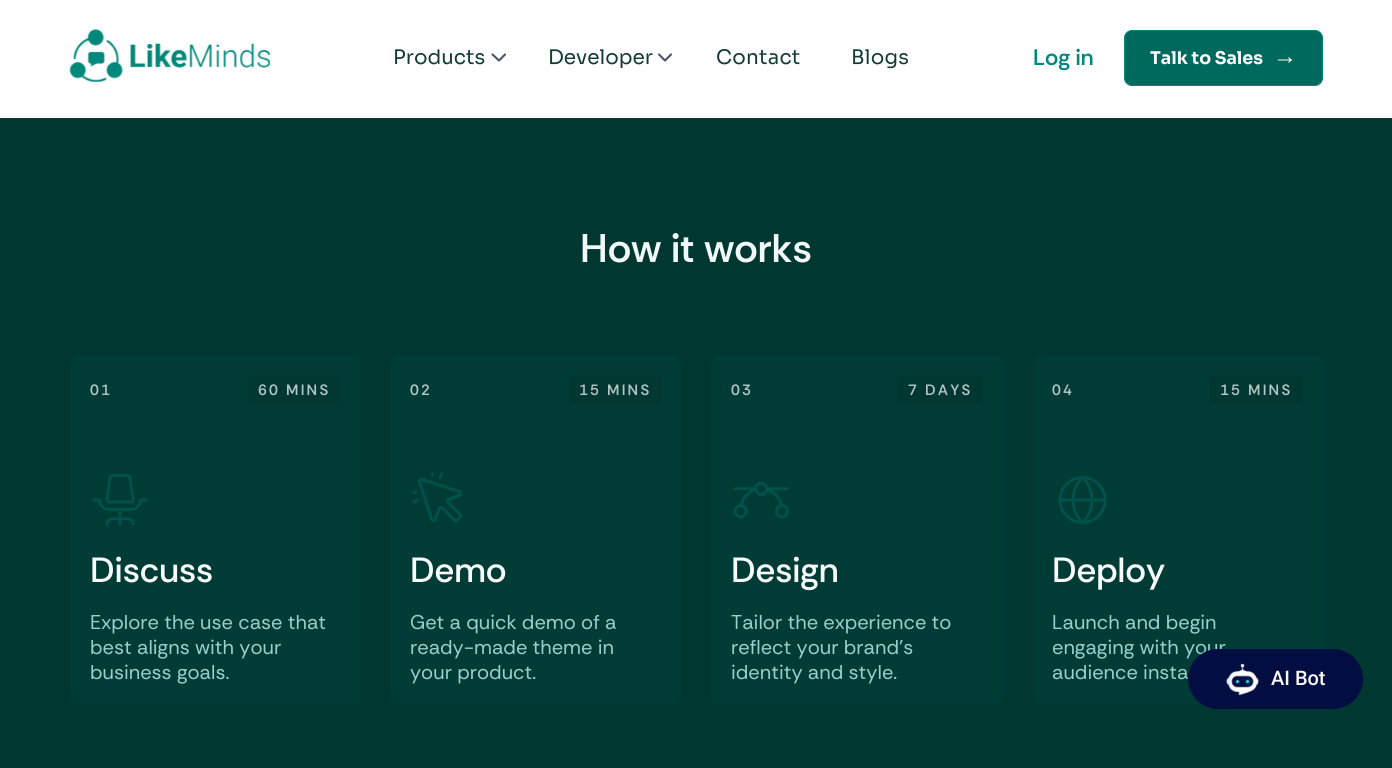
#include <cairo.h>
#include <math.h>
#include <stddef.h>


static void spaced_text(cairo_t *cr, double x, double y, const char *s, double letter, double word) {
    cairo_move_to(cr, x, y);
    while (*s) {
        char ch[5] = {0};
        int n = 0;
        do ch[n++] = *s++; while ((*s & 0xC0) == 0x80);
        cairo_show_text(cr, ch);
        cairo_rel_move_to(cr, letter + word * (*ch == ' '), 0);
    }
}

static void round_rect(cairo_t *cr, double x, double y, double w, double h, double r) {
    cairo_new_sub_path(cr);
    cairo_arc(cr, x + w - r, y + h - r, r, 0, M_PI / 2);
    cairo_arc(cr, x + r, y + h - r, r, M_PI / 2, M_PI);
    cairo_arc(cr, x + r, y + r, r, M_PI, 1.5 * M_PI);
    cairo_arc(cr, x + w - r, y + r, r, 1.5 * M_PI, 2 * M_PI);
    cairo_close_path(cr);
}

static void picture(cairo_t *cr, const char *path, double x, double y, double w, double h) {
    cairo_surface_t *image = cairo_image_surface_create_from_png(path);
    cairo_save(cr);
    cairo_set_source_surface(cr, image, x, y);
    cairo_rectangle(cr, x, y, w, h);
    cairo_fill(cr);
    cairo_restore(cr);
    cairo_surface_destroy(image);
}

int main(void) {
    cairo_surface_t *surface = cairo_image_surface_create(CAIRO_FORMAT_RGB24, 1392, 768);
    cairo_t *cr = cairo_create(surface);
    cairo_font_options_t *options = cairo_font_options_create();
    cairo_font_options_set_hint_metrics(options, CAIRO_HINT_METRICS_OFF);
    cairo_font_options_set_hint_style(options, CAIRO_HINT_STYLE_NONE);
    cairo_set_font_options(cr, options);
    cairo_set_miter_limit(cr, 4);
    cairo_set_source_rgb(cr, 0, 0.216, 0.192);
    cairo_paint(cr);
    cairo_set_source_rgb(cr, 1, 1, 1);
    cairo_rectangle(cr, 0, 0, 1392, 118);
    cairo_fill(cr);
    cairo_set_source_rgb(cr, 0.973, 0.976, 0.992);
    cairo_rectangle(cr, 0, 116, 1392, 1);
    cairo_fill(cr);
    picture(cr, "img1.png", 69, 29, 201, 53);
    cairo_select_font_face(cr, "Sora", CAIRO_FONT_SLANT_NORMAL, CAIRO_FONT_WEIGHT_NORMAL);
    cairo_set_font_size(cr, 20);
    cairo_set_source_rgb(cr, 0.075, 0.235, 0.22);
    cairo_move_to(cr, 393, 64);
    cairo_show_text(cr, "Products");
    cairo_new_path(cr);
    cairo_move_to(cr, 492.5, 54.5);
    cairo_line_to(cr, 499, 60.5);
    cairo_line_to(cr, 505, 54.5);
    cairo_set_source_rgb(cr, 0.278, 0.329, 0.404);
    cairo_set_line_width(cr, 2.1);
    cairo_set_line_cap(cr, CAIRO_LINE_CAP_ROUND);
    cairo_set_line_join(cr, CAIRO_LINE_JOIN_ROUND);
    cairo_stroke(cr);
    cairo_set_source_rgb(cr, 0.075, 0.235, 0.22);
    cairo_move_to(cr, 548, 64);
    cairo_show_text(cr, "Developer");
    cairo_new_path(cr);
    cairo_move_to(cr, 659, 54.5);
    cairo_line_to(cr, 665, 60.5);
    cairo_line_to(cr, 671, 54.5);
    cairo_set_source_rgb(cr, 0.278, 0.329, 0.404);
    cairo_stroke(cr);
    cairo_set_source_rgb(cr, 0.075, 0.235, 0.22);
    spaced_text(cr, 716, 64, "Contact", 0.25, 0);
    spaced_text(cr, 851, 64, "Blogs", 0.25, 0);
    cairo_select_font_face(cr, "Rethink Sans SemiBold", CAIRO_FONT_SLANT_NORMAL, CAIRO_FONT_WEIGHT_NORMAL);
    cairo_set_font_size(cr, 22.5);
    cairo_set_source_rgb(cr, 0, 0.537, 0.482);
    cairo_move_to(cr, 1033, 65);
    cairo_show_text(cr, "Log in");
    cairo_set_source_rgb(cr, 0, 0.412, 0.369);
    round_rect(cr, 1124.5, 30.5, 198, 55, 7.5);
    cairo_fill_preserve(cr);
    cairo_set_source_rgb(cr, 0, 0.537, 0.482);
    cairo_set_line_width(cr, 1);
    cairo_set_line_cap(cr, CAIRO_LINE_CAP_BUTT);
    cairo_set_line_join(cr, CAIRO_LINE_JOIN_MITER);
    cairo_stroke(cr);
    cairo_select_font_face(cr, "Sora", CAIRO_FONT_SLANT_NORMAL, CAIRO_FONT_WEIGHT_BOLD);
    cairo_set_font_size(cr, 17.5);
    cairo_set_source_rgb(cr, 0.98, 0.98, 0.98);
    cairo_move_to(cr, 1150, 64);
    cairo_show_text(cr, "Talk to Sales");
    cairo_select_font_face(cr, "Liberation Serif", CAIRO_FONT_SLANT_NORMAL, CAIRO_FONT_WEIGHT_BOLD);
    cairo_set_font_size(cr, 24);
    cairo_move_to(cr, 1273, 64);
    cairo_show_text(cr, "→");
    cairo_select_font_face(cr, "Rethink Sans SemiBold", CAIRO_FONT_SLANT_NORMAL, CAIRO_FONT_WEIGHT_NORMAL);
    cairo_set_font_size(cr, 40);
    cairo_set_source_rgb(cr, 0.949, 0.976, 0.973);
    cairo_move_to(cr, 580, 262);
    cairo_show_text(cr, "How it works");
    cairo_set_source_rgb(cr, 0, 0.235, 0.212);
    round_rect(cr, 70, 355, 290, 350, 10);
    cairo_fill(cr);
    cairo_set_font_size(cr, 15);
    cairo_set_source_rgb(cr, 0.702, 0.773, 0.765);
    spaced_text(cr, 90, 395, "01", 2.25, 0);
    cairo_set_source_rgb(cr, 0, 0.216, 0.192);
    round_rect(cr, 248, 375, 92, 30, 5);
    cairo_fill(cr);
    cairo_set_source_rgb(cr, 0.702, 0.773, 0.765);
    spaced_text(cr, 258, 395, "60 MINS", 2.25, 0);
    picture(cr, "img2.png", 92, 474, 56, 52);
    cairo_select_font_face(cr, "Rethink Sans Medium", CAIRO_FONT_SLANT_NORMAL, CAIRO_FONT_WEIGHT_NORMAL);
    cairo_set_font_size(cr, 35);
    cairo_set_source_rgb(cr, 0.98, 0.98, 0.98);
    cairo_move_to(cr, 90, 582);
    cairo_show_text(cr, "Discuss");
    cairo_select_font_face(cr, "Rethink Sans", CAIRO_FONT_SLANT_NORMAL, CAIRO_FONT_WEIGHT_NORMAL);
    cairo_set_font_size(cr, 20);
    cairo_set_source_rgb(cr, 0.6, 0.816, 0.792);
    cairo_move_to(cr, 90, 629);
    cairo_show_text(cr, "Explore the use case that");
    cairo_move_to(cr, 90, 654);
    cairo_show_text(cr, "best aligns with your");
    cairo_move_to(cr, 90, 679);
    cairo_show_text(cr, "business goals.");
    cairo_set_source_rgb(cr, 0, 0.235, 0.212);
    round_rect(cr, 390, 355, 291, 350, 10);
    cairo_fill(cr);
    cairo_select_font_face(cr, "Rethink Sans SemiBold", CAIRO_FONT_SLANT_NORMAL, CAIRO_FONT_WEIGHT_NORMAL);
    cairo_set_font_size(cr, 15);
    cairo_set_source_rgb(cr, 0.702, 0.773, 0.765);
    spaced_text(cr, 410, 395, "02", 2.25, 0);
    cairo_set_source_rgb(cr, 0, 0.216, 0.192);
    round_rect(cr, 569, 375, 92, 30, 5);
    cairo_fill(cr);
    cairo_set_source_rgb(cr, 0.702, 0.773, 0.765);
    spaced_text(cr, 579, 395, "15 MINS", 2.25, 0);
    picture(cr, "img3.png", 412, 472, 50, 50);
    cairo_select_font_face(cr, "Rethink Sans Medium", CAIRO_FONT_SLANT_NORMAL, CAIRO_FONT_WEIGHT_NORMAL);
    cairo_set_font_size(cr, 35);
    cairo_set_source_rgb(cr, 0.98, 0.98, 0.98);
    cairo_move_to(cr, 410, 582);
    cairo_show_text(cr, "Demo");
    cairo_select_font_face(cr, "Rethink Sans", CAIRO_FONT_SLANT_NORMAL, CAIRO_FONT_WEIGHT_NORMAL);
    cairo_set_font_size(cr, 20);
    cairo_set_source_rgb(cr, 0.6, 0.816, 0.792);
    cairo_move_to(cr, 410, 629);
    cairo_show_text(cr, "Get a quick demo of a");
    cairo_move_to(cr, 410, 654);
    cairo_show_text(cr, "ready-made theme in");
    cairo_move_to(cr, 410, 679);
    cairo_show_text(cr, "your product.");
    cairo_set_source_rgb(cr, 0, 0.235, 0.212);
    round_rect(cr, 711, 355, 292, 350, 10);
    cairo_fill(cr);
    cairo_select_font_face(cr, "Rethink Sans SemiBold", CAIRO_FONT_SLANT_NORMAL, CAIRO_FONT_WEIGHT_NORMAL);
    cairo_set_font_size(cr, 15);
    cairo_set_source_rgb(cr, 0.702, 0.773, 0.765);
    spaced_text(cr, 731, 395, "03", 2.25, 0);
    cairo_set_source_rgb(cr, 0, 0.216, 0.192);
    round_rect(cr, 898, 375, 85, 30, 5);
    cairo_fill(cr);
    cairo_set_source_rgb(cr, 0.702, 0.773, 0.765);
    spaced_text(cr, 908, 395, "7 DAYS", 2.25, 0);
    picture(cr, "img4.png", 733, 481, 56, 38);
    cairo_select_font_face(cr, "Rethink Sans Medium", CAIRO_FONT_SLANT_NORMAL, CAIRO_FONT_WEIGHT_NORMAL);
    cairo_set_font_size(cr, 35);
    cairo_set_source_rgb(cr, 0.98, 0.98, 0.98);
    cairo_move_to(cr, 731, 582);
    cairo_show_text(cr, "Design");
    cairo_select_font_face(cr, "Rethink Sans", CAIRO_FONT_SLANT_NORMAL, CAIRO_FONT_WEIGHT_NORMAL);
    cairo_set_font_size(cr, 20);
    cairo_set_source_rgb(cr, 0.6, 0.816, 0.792);
    cairo_move_to(cr, 731, 629);
    cairo_show_text(cr, "Tailor the experience to");
    cairo_move_to(cr, 731, 654);
    cairo_show_text(cr, "reflect your brand’s");
    cairo_move_to(cr, 731, 679);
    cairo_show_text(cr, "identity and style.");
    cairo_set_source_rgb(cr, 0, 0.235, 0.212);
    round_rect(cr, 1033, 355, 290, 350, 10);
    cairo_fill(cr);
    cairo_select_font_face(cr, "Rethink Sans SemiBold", CAIRO_FONT_SLANT_NORMAL, CAIRO_FONT_WEIGHT_NORMAL);
    cairo_set_font_size(cr, 15);
    cairo_set_source_rgb(cr, 0.702, 0.773, 0.765);
    spaced_text(cr, 1052, 395, "04", 2.25, 0);
    cairo_set_source_rgb(cr, 0, 0.216, 0.192);
    round_rect(cr, 1210, 375, 93, 30, 5);
    cairo_fill(cr);
    cairo_set_source_rgb(cr, 0.702, 0.773, 0.765);
    spaced_text(cr, 1220, 395, "15 MINS", 2.25, 0);
    picture(cr, "img5.png", 1058, 476, 49, 48);
    cairo_select_font_face(cr, "Rethink Sans Medium", CAIRO_FONT_SLANT_NORMAL, CAIRO_FONT_WEIGHT_NORMAL);
    cairo_set_font_size(cr, 35);
    cairo_set_source_rgb(cr, 0.98, 0.98, 0.98);
    cairo_move_to(cr, 1052, 582);
    cairo_show_text(cr, "Deploy");
    cairo_select_font_face(cr, "Rethink Sans", CAIRO_FONT_SLANT_NORMAL, CAIRO_FONT_WEIGHT_NORMAL);
    cairo_set_font_size(cr, 20);
    cairo_set_source_rgb(cr, 0.6, 0.816, 0.792);
    cairo_move_to(cr, 1052, 629);
    cairo_show_text(cr, "Launch and begin");
    cairo_move_to(cr, 1052, 654);
    cairo_show_text(cr, "engaging with your");
    cairo_move_to(cr, 1052, 679);
    cairo_show_text(cr, "audience insta");
    cairo_set_source_rgb(cr, 0.008, 0.051, 0.259);
    round_rect(cr, 1188, 649, 175, 60, 30);
    cairo_fill(cr);
    picture(cr, "img6.png", 1226, 663, 33, 33);
    cairo_select_font_face(cr, "Roboto Medium", CAIRO_FONT_SLANT_NORMAL, CAIRO_FONT_WEIGHT_NORMAL);
    cairo_set_source_rgb(cr, 0.98, 0.98, 0.98);
    cairo_move_to(cr, 1271, 685);
    cairo_show_text(cr, "AI Bot");
    cairo_surface_write_to_png(surface, "page.png");
    cairo_font_options_destroy(options);
    cairo_destroy(cr);
    cairo_surface_destroy(surface);
    return 0;
}
